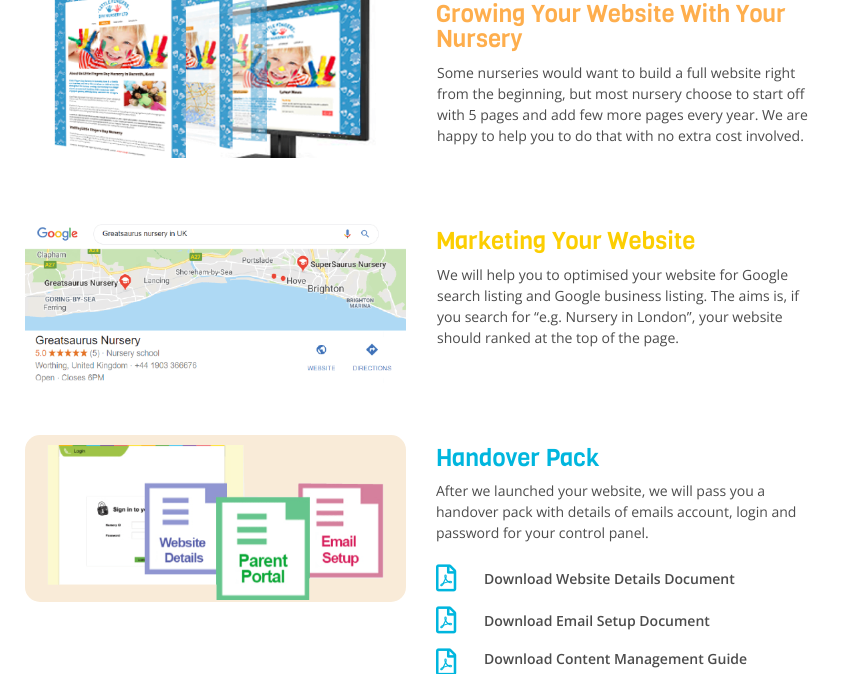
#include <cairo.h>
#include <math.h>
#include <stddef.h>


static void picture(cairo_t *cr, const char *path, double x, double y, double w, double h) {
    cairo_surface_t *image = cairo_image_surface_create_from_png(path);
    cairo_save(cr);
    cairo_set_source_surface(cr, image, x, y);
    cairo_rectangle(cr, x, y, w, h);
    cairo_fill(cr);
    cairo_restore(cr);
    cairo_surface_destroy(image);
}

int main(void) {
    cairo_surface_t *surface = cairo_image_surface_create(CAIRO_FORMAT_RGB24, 841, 674);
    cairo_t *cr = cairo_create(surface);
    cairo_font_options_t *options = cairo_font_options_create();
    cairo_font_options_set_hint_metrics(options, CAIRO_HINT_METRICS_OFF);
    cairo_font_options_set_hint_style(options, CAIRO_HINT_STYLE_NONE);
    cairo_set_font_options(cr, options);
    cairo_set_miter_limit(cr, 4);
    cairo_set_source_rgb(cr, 1, 1, 1);
    cairo_paint(cr);
    picture(cr, "img1.png", 54, 0, 322, 158);
    cairo_select_font_face(cr, "Viga", CAIRO_FONT_SLANT_NORMAL, CAIRO_FONT_WEIGHT_NORMAL);
    cairo_set_font_size(cr, 24);
    cairo_set_source_rgb(cr, 0.996, 0.682, 0.302);
    cairo_move_to(cr, 436, 22);
    cairo_show_text(cr, "Growing Your Website With Your");
    cairo_move_to(cr, 436, 47);
    cairo_show_text(cr, "Nursery");
    cairo_select_font_face(cr, "Open Sans", CAIRO_FONT_SLANT_NORMAL, CAIRO_FONT_WEIGHT_NORMAL);
    cairo_set_font_size(cr, 14);
    cairo_set_source_rgb(cr, 0.298, 0.298, 0.298);
    cairo_move_to(cr, 437, 78);
    cairo_show_text(cr, "Some nurseries would want to build a full website right");
    cairo_move_to(cr, 437, 99);
    cairo_show_text(cr, "from the beginning, but most nursery choose to start off");
    cairo_move_to(cr, 437, 120);
    cairo_show_text(cr, "with 5 pages and add few more pages every year. We are");
    cairo_move_to(cr, 437, 141);
    cairo_show_text(cr, "happy to help you to do that with no extra cost involved.");
    picture(cr, "img2.png", 25, 224, 381, 159);
    cairo_select_font_face(cr, "Viga", CAIRO_FONT_SLANT_NORMAL, CAIRO_FONT_WEIGHT_NORMAL);
    cairo_set_font_size(cr, 24);
    cairo_set_source_rgb(cr, 0.988, 0.808, 0.008);
    cairo_move_to(cr, 436, 249);
    cairo_show_text(cr, "Marketing Your Website");
    cairo_select_font_face(cr, "Open Sans", CAIRO_FONT_SLANT_NORMAL, CAIRO_FONT_WEIGHT_NORMAL);
    cairo_set_font_size(cr, 14);
    cairo_set_source_rgb(cr, 0.298, 0.298, 0.298);
    cairo_move_to(cr, 437, 280);
    cairo_show_text(cr, "We will help you to optimised your website for Google");
    cairo_move_to(cr, 437, 301);
    cairo_show_text(cr, "search listing and Google business listing. The aims is, if");
    cairo_move_to(cr, 437, 322);
    cairo_show_text(cr, "you search for “e.g. Nursery in London”, your website");
    cairo_move_to(cr, 437, 343);
    cairo_show_text(cr, "should ranked at the top of the page.");
    picture(cr, "img3.png", 25, 435, 381, 167);
    cairo_select_font_face(cr, "Viga", CAIRO_FONT_SLANT_NORMAL, CAIRO_FONT_WEIGHT_NORMAL);
    cairo_set_font_size(cr, 24);
    cairo_set_source_rgb(cr, 0, 0.714, 0.871);
    cairo_move_to(cr, 436, 466);
    cairo_show_text(cr, "Handover Pack");
    cairo_select_font_face(cr, "Open Sans", CAIRO_FONT_SLANT_NORMAL, CAIRO_FONT_WEIGHT_NORMAL);
    cairo_set_font_size(cr, 14);
    cairo_set_source_rgb(cr, 0.298, 0.298, 0.298);
    cairo_move_to(cr, 436, 496);
    cairo_show_text(cr, "After we launched your website, we will pass you a");
    cairo_move_to(cr, 436, 517);
    cairo_show_text(cr, "handover pack with details of emails account, login and");
    cairo_move_to(cr, 436, 538);
    cairo_show_text(cr, "password for your control panel.");
    picture(cr, "img4.png", 436, 564, 21, 28);
    cairo_select_font_face(cr, "Open Sans SemiBold", CAIRO_FONT_SLANT_NORMAL, CAIRO_FONT_WEIGHT_NORMAL);
    cairo_move_to(cr, 484, 584);
    cairo_show_text(cr, "Download Website Details Document");
    picture(cr, "img4.png", 436, 606, 21, 28);
    cairo_move_to(cr, 484, 626);
    cairo_show_text(cr, "Download Email Setup Document");
    picture(cr, "img5.png", 436, 648, 21, 26);
    cairo_move_to(cr, 484, 664);
    cairo_show_text(cr, "Download Content Management Guide");
    cairo_surface_write_to_png(surface, "page.png");
    cairo_font_options_destroy(options);
    cairo_destroy(cr);
    cairo_surface_destroy(surface);
    return 0;
}
